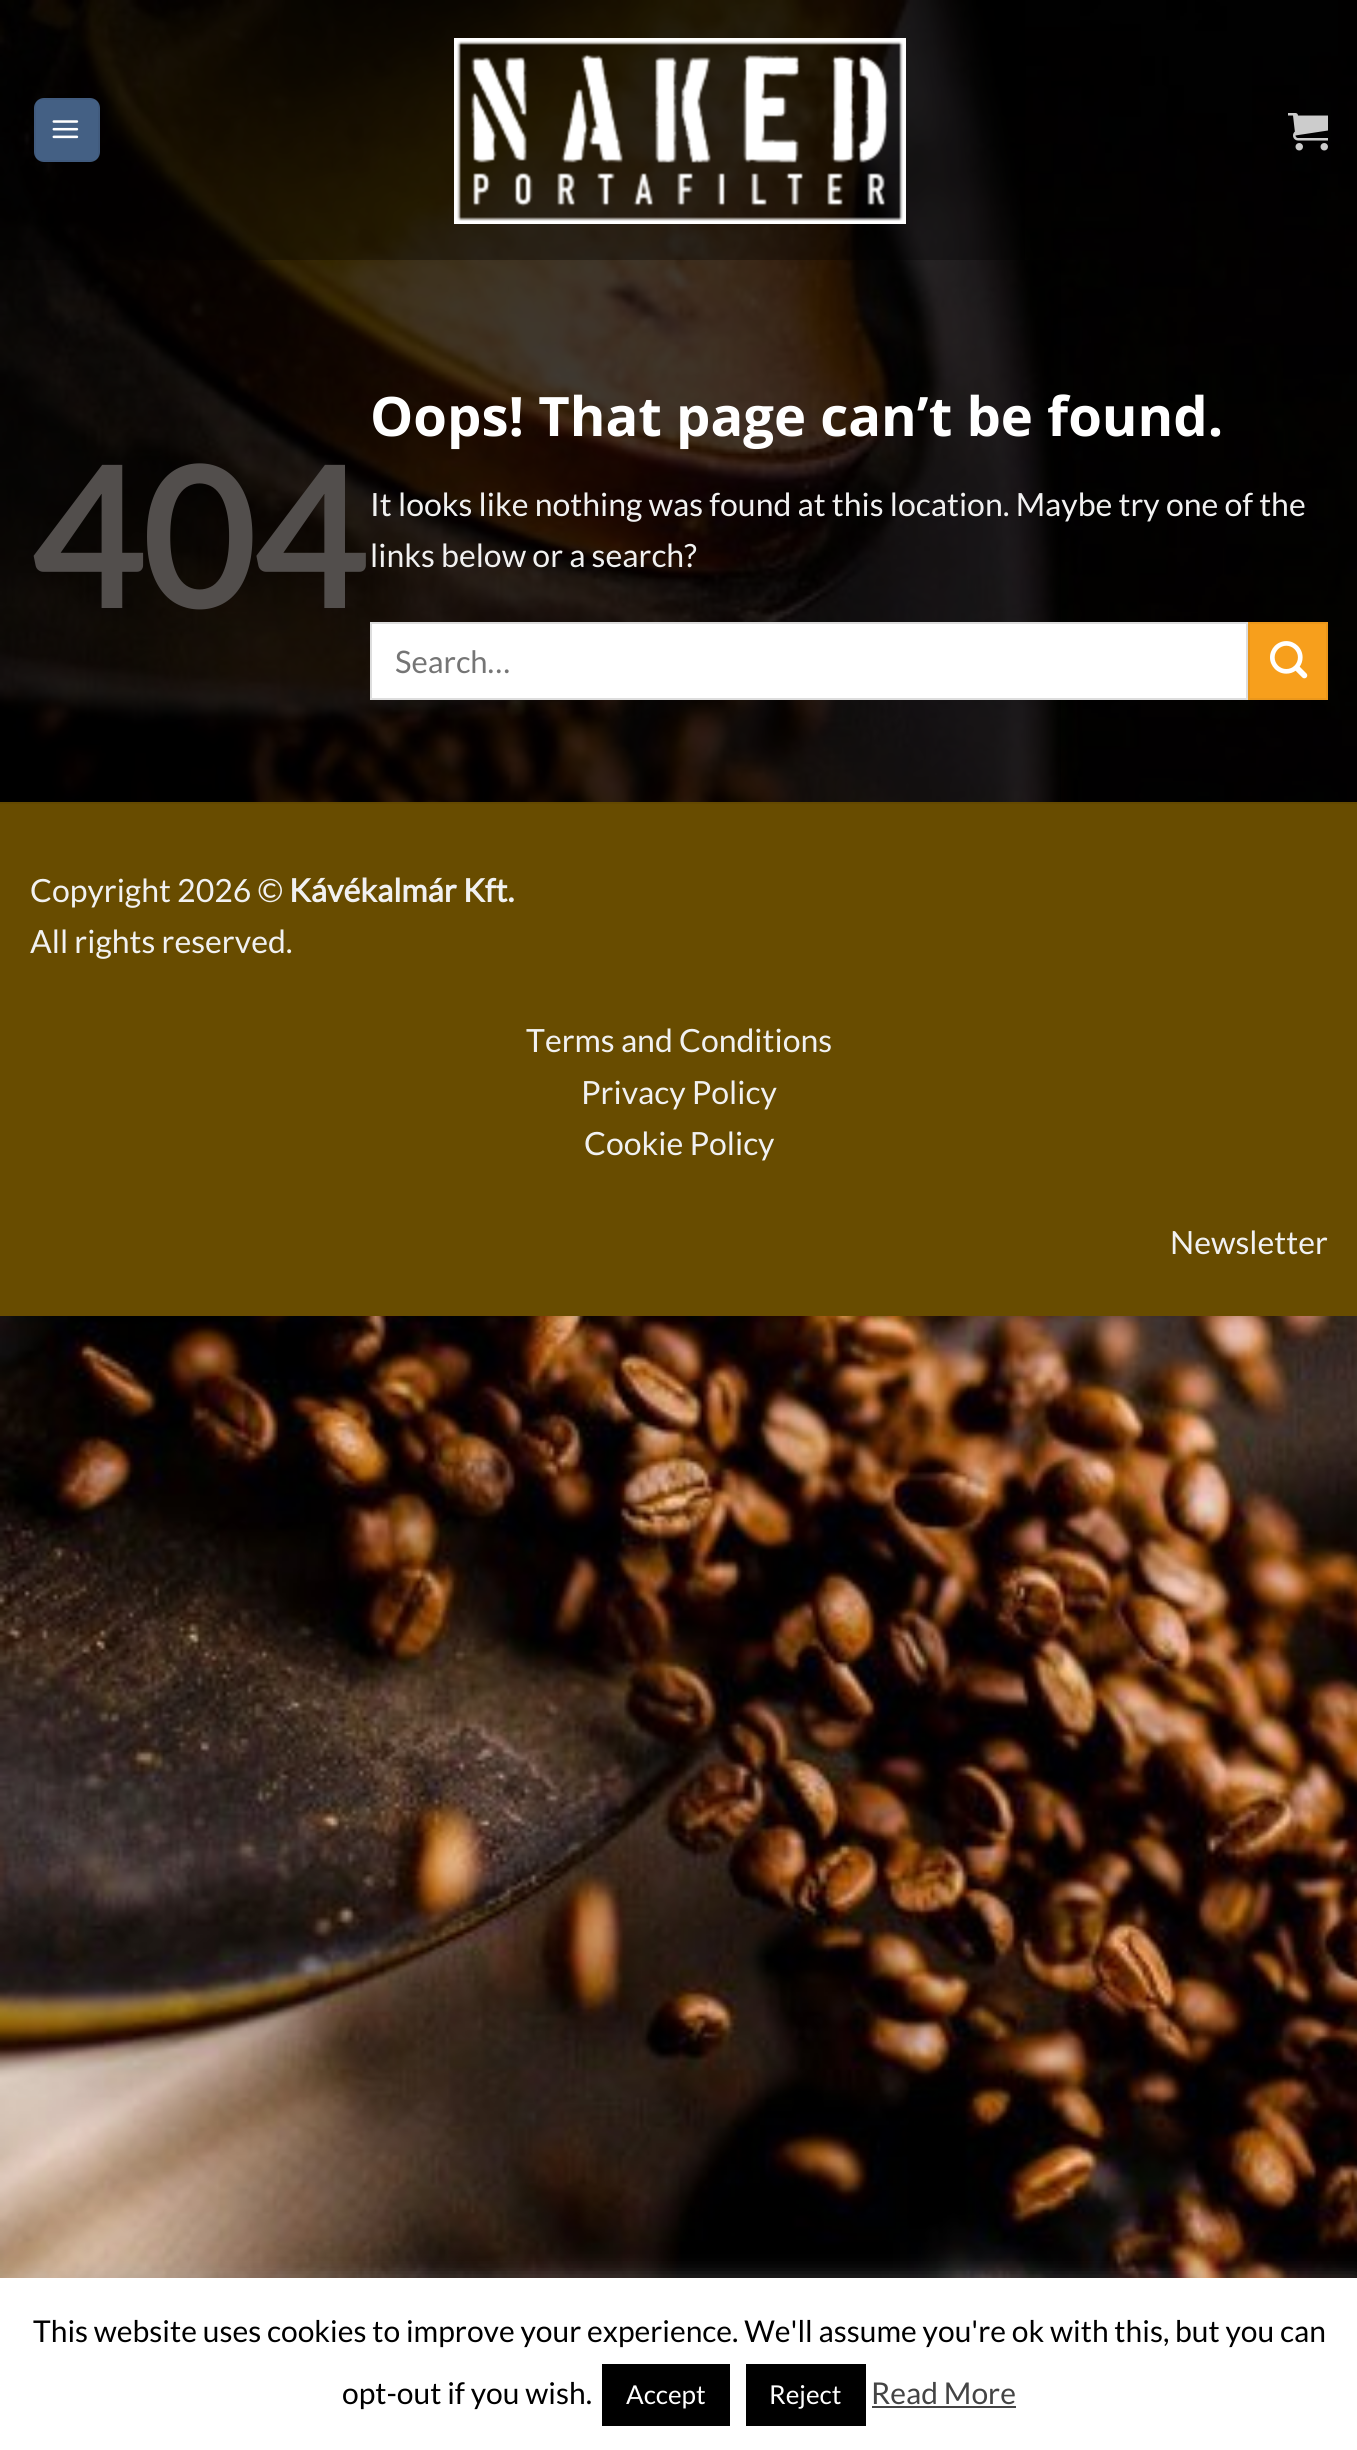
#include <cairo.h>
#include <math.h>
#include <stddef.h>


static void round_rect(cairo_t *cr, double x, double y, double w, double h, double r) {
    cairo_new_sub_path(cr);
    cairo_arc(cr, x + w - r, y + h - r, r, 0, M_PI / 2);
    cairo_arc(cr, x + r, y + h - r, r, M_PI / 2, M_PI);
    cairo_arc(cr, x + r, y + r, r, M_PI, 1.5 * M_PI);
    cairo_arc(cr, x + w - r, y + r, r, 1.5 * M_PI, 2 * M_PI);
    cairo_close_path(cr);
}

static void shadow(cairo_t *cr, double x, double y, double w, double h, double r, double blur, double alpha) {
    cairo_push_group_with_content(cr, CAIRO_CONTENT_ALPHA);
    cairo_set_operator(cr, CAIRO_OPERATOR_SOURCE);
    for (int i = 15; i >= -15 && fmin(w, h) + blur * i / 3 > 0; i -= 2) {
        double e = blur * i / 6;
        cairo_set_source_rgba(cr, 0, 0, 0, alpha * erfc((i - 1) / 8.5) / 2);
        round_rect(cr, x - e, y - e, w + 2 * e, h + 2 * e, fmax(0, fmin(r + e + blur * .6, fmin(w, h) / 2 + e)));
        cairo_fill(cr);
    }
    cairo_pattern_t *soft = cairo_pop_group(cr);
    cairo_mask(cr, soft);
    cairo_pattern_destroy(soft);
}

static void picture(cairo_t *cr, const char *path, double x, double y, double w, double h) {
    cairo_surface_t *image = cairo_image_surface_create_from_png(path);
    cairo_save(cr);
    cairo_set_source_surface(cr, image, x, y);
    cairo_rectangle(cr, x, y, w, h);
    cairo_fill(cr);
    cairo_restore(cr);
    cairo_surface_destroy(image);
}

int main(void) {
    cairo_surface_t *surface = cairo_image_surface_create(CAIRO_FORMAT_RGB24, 1357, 2450);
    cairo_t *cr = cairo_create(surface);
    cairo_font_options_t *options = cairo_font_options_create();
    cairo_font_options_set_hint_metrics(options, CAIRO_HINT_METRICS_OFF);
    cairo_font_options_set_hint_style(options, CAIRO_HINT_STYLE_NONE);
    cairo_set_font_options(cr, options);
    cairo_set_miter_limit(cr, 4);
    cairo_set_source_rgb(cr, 1, 1, 1);
    cairo_paint(cr);
    picture(cr, "img1.png", 0, 0, 1357, 2278);
    cairo_set_source_rgba(cr, 0, 0, 0, 0.6);
    cairo_rectangle(cr, 0, 0, 1357, 260);
    cairo_fill(cr);
    cairo_rectangle(cr, 0, 0, 1025, 260);
    cairo_fill(cr);
    cairo_set_source_rgb(cr, 0.267, 0.376, 0.518);
    round_rect(cr, 34, 98, 66, 64, 10);
    cairo_fill(cr);
    cairo_rectangle(cr, 35, 99, 64, 62);
    cairo_set_source_rgba(cr, 0, 0, 0, 0.05);
    cairo_stroke(cr);
    picture(cr, "img2.png", 52, 120, 27, 19);
    picture(cr, "img3.png", 454, 38, 452, 186);
    picture(cr, "img4.png", 1288, 113, 40, 38);
    cairo_set_source_rgba(cr, 0, 0, 0, 0.5);
    cairo_rectangle(cr, 0, 260, 1357, 542);
    cairo_fill(cr);
    cairo_rectangle(cr, 0, 260, 1061, 542);
    cairo_fill(cr);
    cairo_select_font_face(cr, "Lato", CAIRO_FONT_SLANT_NORMAL, CAIRO_FONT_WEIGHT_BOLD);
    cairo_set_font_size(cr, 192);
    cairo_set_source_rgb(cr, 0.322, 0.306, 0.298);
    cairo_move_to(cr, 30, 608);
    cairo_show_text(cr, "404");
    cairo_select_font_face(cr, "Open Sans", CAIRO_FONT_SLANT_NORMAL, CAIRO_FONT_WEIGHT_BOLD);
    cairo_set_font_size(cr, 54.4);
    cairo_set_source_rgb(cr, 1, 1, 1);
    cairo_move_to(cr, 370, 436);
    cairo_show_text(cr, "Oops! That page can’t be found.");
    cairo_select_font_face(cr, "Lato", CAIRO_FONT_SLANT_NORMAL, CAIRO_FONT_WEIGHT_NORMAL);
    cairo_set_font_size(cr, 32);
    cairo_set_source_rgb(cr, 0.945, 0.945, 0.945);
    cairo_move_to(cr, 370, 516);
    cairo_show_text(cr, "It looks like nothing was found at this location. Maybe try one of the");
    cairo_move_to(cr, 370, 567);
    cairo_show_text(cr, "links below or a search?");
    cairo_set_source_rgb(cr, 1, 1, 1);
    cairo_rectangle(cr, 371, 623, 876, 76);
    cairo_fill_preserve(cr);
    cairo_set_source_rgb(cr, 0.867, 0.867, 0.867);
    cairo_stroke(cr);
    cairo_set_font_size(cr, 31);
    cairo_set_source_rgb(cr, 0.459, 0.459, 0.459);
    cairo_move_to(cr, 395, 673);
    cairo_show_text(cr, "Search…");
    cairo_set_source_rgb(cr, 0.965, 0.624, 0.11);
    cairo_rectangle(cr, 1249, 623, 78, 76);
    cairo_fill_preserve(cr);
    cairo_set_source_rgb(cr, 0.918, 0.592, 0.106);
    cairo_stroke(cr);
    picture(cr, "img5.png", 1270, 641, 38, 38);
    cairo_set_source_rgb(cr, 0.408, 0.298, 0);
    cairo_rectangle(cr, 0, 804, 1357, 512);
    cairo_fill(cr);
    cairo_set_source_rgb(cr, 0.388, 0.282, 0);
    cairo_rectangle(cr, 0, 802, 1357, 2);
    cairo_fill(cr);
    cairo_set_font_size(cr, 32);
    cairo_set_source_rgb(cr, 0.945, 0.945, 0.945);
    cairo_move_to(cr, 30, 902);
    cairo_show_text(cr, "Copyright 2026 ©");
    cairo_select_font_face(cr, "Lato", CAIRO_FONT_SLANT_NORMAL, CAIRO_FONT_WEIGHT_BOLD);
    cairo_move_to(cr, 289, 902);
    cairo_show_text(cr, "Kávékalmár Kft.");
    cairo_select_font_face(cr, "Lato", CAIRO_FONT_SLANT_NORMAL, CAIRO_FONT_WEIGHT_NORMAL);
    cairo_move_to(cr, 30, 953);
    cairo_show_text(cr, "All rights reserved.");
    cairo_move_to(cr, 526, 1052);
    cairo_show_text(cr, "Terms and Conditions");
    cairo_move_to(cr, 581, 1104);
    cairo_show_text(cr, "Privacy Policy");
    cairo_move_to(cr, 584, 1155);
    cairo_show_text(cr, "Cookie Policy");
    cairo_move_to(cr, 1170, 1254);
    cairo_show_text(cr, "Newsletter");
    cairo_set_source_rgb(cr, 0.675, 0.671, 0.671);
    shadow(cr, 0, 2276, 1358, 172, 0, 10, 0.3);
    cairo_set_source_rgb(cr, 1, 1, 1);
    cairo_rectangle(cr, 0, 2278, 1357, 172);
    cairo_fill(cr);
    cairo_set_font_size(cr, 30);
    cairo_set_source_rgb(cr, 0, 0, 0);
    cairo_move_to(cr, 33, 2342);
    cairo_show_text(cr, "This website uses cookies to improve your experience. We'll assume you're ok with this, but you can");
    cairo_move_to(cr, 342, 2404);
    cairo_show_text(cr, "opt-out if you wish.");
    cairo_rectangle(cr, 602, 2364, 128, 62);
    cairo_fill(cr);
    cairo_set_font_size(cr, 26);
    cairo_set_source_rgb(cr, 1, 1, 1);
    cairo_move_to(cr, 626, 2404);
    cairo_show_text(cr, "Accept");
    cairo_set_source_rgb(cr, 0, 0, 0);
    cairo_rectangle(cr, 746, 2364, 120, 62);
    cairo_fill(cr);
    cairo_set_source_rgb(cr, 1, 1, 1);
    cairo_move_to(cr, 769, 2404);
    cairo_show_text(cr, "Reject");
    cairo_set_font_size(cr, 30);
    cairo_set_source_rgb(cr, 0.267, 0.267, 0.267);
    cairo_move_to(cr, 871, 2404);
    cairo_show_text(cr, "Read More");
    cairo_rectangle(cr, 872, 2406, 144, 2);
    cairo_fill(cr);
    cairo_surface_write_to_png(surface, "page.png");
    cairo_font_options_destroy(options);
    cairo_destroy(cr);
    cairo_surface_destroy(surface);
    return 0;
}
